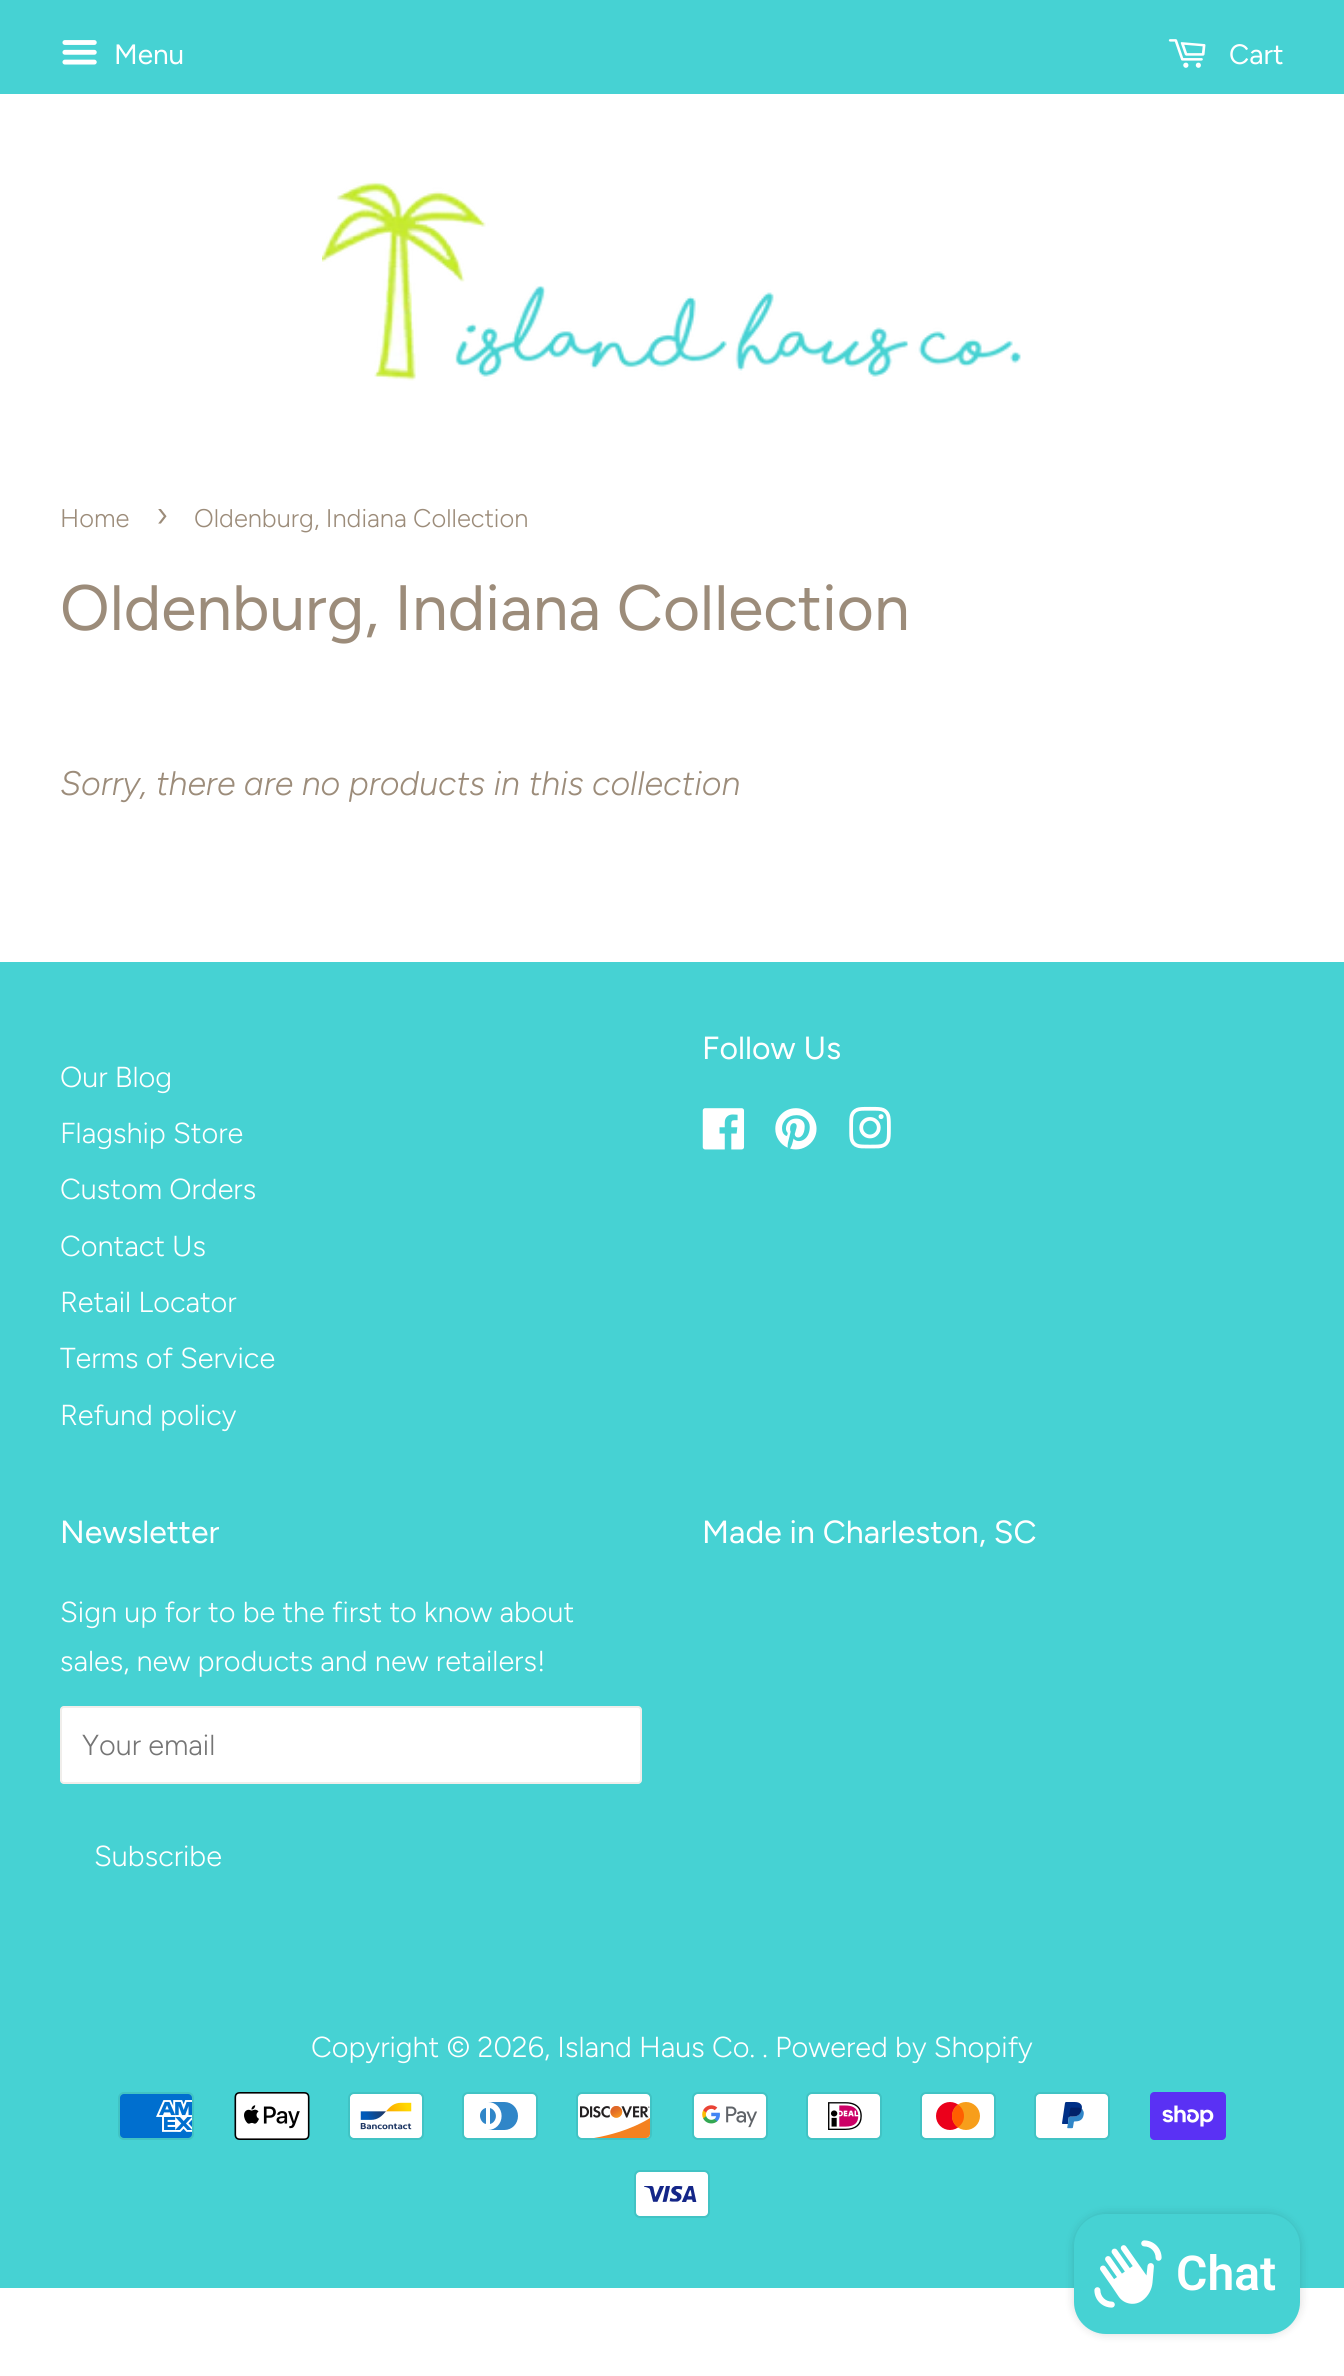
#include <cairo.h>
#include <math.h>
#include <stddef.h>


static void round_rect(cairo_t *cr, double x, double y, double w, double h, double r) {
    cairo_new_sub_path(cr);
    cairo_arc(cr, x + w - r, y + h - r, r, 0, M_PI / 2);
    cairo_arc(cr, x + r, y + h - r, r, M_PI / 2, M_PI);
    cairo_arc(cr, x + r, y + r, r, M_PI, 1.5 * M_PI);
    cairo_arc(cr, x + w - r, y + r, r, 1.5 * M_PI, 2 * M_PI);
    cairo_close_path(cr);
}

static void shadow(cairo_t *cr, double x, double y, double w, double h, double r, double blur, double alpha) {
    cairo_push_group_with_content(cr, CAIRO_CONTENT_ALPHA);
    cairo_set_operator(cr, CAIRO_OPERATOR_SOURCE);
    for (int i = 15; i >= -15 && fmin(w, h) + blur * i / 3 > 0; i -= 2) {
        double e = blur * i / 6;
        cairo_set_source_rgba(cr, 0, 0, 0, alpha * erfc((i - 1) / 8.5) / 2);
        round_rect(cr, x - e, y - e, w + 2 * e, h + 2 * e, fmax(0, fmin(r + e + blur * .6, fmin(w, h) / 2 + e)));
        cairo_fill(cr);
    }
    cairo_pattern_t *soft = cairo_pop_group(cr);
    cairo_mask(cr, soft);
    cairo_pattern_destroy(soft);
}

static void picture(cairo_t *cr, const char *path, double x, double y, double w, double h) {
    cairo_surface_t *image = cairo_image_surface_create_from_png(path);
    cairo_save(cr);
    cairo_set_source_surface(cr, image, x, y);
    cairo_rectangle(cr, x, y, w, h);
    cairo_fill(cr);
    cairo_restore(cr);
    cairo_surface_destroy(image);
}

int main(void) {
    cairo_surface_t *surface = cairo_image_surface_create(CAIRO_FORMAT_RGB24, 1344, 2376);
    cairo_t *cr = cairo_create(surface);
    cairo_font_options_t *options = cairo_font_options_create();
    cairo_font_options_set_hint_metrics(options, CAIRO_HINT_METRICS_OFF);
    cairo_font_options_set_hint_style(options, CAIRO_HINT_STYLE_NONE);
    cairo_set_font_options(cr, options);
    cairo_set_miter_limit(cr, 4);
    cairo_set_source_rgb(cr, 1, 1, 1);
    cairo_paint(cr);
    cairo_set_source_rgb(cr, 0.275, 0.824, 0.827);
    cairo_rectangle(cr, 0, 0, 1344, 94);
    cairo_fill(cr);
    picture(cr, "img1.png", 62, 40, 35, 25);
    cairo_select_font_face(cr, "Figtree", CAIRO_FONT_SLANT_NORMAL, CAIRO_FONT_WEIGHT_NORMAL);
    cairo_set_font_size(cr, 28);
    cairo_set_source_rgb(cr, 1, 1, 1);
    cairo_move_to(cr, 114, 64);
    cairo_show_text(cr, "Menu");
    picture(cr, "img2.png", 1168, 39, 38, 29);
    cairo_move_to(cr, 1229, 64);
    cairo_show_text(cr, "Cart");
    picture(cr, "img3.png", 322, 181, 699, 200);
    cairo_select_font_face(cr, "Figtree Light", CAIRO_FONT_SLANT_NORMAL, CAIRO_FONT_WEIGHT_NORMAL);
    cairo_set_font_size(cr, 25.5);
    cairo_set_source_rgb(cr, 0.612, 0.549, 0.478);
    cairo_move_to(cr, 60, 527);
    cairo_show_text(cr, "Home");
    cairo_set_font_size(cr, 36);
    cairo_move_to(cr, 156, 527);
    cairo_show_text(cr, "›");
    cairo_set_font_size(cr, 25.5);
    cairo_move_to(cr, 194, 527);
    cairo_show_text(cr, "Oldenburg, Indiana Collection");
    cairo_select_font_face(cr, "Figtree", CAIRO_FONT_SLANT_NORMAL, CAIRO_FONT_WEIGHT_NORMAL);
    cairo_set_font_size(cr, 64);
    cairo_move_to(cr, 60, 630);
    cairo_show_text(cr, "Oldenburg, Indiana Collection");
    cairo_select_font_face(cr, "Figtree Light", CAIRO_FONT_SLANT_ITALIC, CAIRO_FONT_WEIGHT_NORMAL);
    cairo_set_font_size(cr, 34);
    cairo_move_to(cr, 60, 795);
    cairo_show_text(cr, "Sorry, there are no products in this collection");
    cairo_set_source_rgb(cr, 0.275, 0.824, 0.827);
    cairo_rectangle(cr, 0, 962, 1344, 1326);
    cairo_fill(cr);
    cairo_select_font_face(cr, "Figtree", CAIRO_FONT_SLANT_NORMAL, CAIRO_FONT_WEIGHT_NORMAL);
    cairo_set_font_size(cr, 32);
    cairo_set_source_rgb(cr, 1, 1, 1);
    cairo_move_to(cr, 702, 1059);
    cairo_show_text(cr, "Follow Us");
    picture(cr, "img4.png", 702, 1108, 43, 42);
    picture(cr, "img5.png", 775, 1108, 42, 42);
    picture(cr, "img6.png", 849, 1106, 42, 43);
    cairo_select_font_face(cr, "Figtree Light", CAIRO_FONT_SLANT_NORMAL, CAIRO_FONT_WEIGHT_NORMAL);
    cairo_set_font_size(cr, 28.9);
    cairo_move_to(cr, 60, 1087);
    cairo_show_text(cr, "Our Blog");
    cairo_move_to(cr, 60, 1143);
    cairo_show_text(cr, "Flagship Store");
    cairo_move_to(cr, 60, 1199);
    cairo_show_text(cr, "Custom Orders");
    cairo_move_to(cr, 60, 1256);
    cairo_show_text(cr, "Contact Us");
    cairo_move_to(cr, 60, 1312);
    cairo_show_text(cr, "Retail Locator");
    cairo_move_to(cr, 60, 1368);
    cairo_show_text(cr, "Terms of Service");
    cairo_move_to(cr, 60, 1425);
    cairo_show_text(cr, "Refund policy");
    cairo_select_font_face(cr, "Figtree", CAIRO_FONT_SLANT_NORMAL, CAIRO_FONT_WEIGHT_NORMAL);
    cairo_set_font_size(cr, 32);
    cairo_move_to(cr, 60, 1543);
    cairo_show_text(cr, "Newsletter");
    cairo_select_font_face(cr, "Figtree Light", CAIRO_FONT_SLANT_NORMAL, CAIRO_FONT_WEIGHT_NORMAL);
    cairo_set_font_size(cr, 28.9);
    cairo_move_to(cr, 60, 1622);
    cairo_show_text(cr, "Sign up for to be the first to know about");
    cairo_move_to(cr, 60, 1671);
    cairo_show_text(cr, "sales, new products and new retailers!");
    round_rect(cr, 60, 1706, 582, 78, 4);
    cairo_fill(cr);
    round_rect(cr, 61, 1707, 580, 76, 3);
    cairo_set_source_rgba(cr, 0.612, 0.549, 0.478, 0.15);
    cairo_stroke(cr);
    cairo_set_source_rgb(cr, 0.459, 0.459, 0.459);
    cairo_move_to(cr, 82, 1755);
    cairo_show_text(cr, "Your email");
    cairo_set_source_rgb(cr, 1, 1, 1);
    cairo_move_to(cr, 94, 1866);
    cairo_show_text(cr, "Subscribe");
    cairo_select_font_face(cr, "Figtree", CAIRO_FONT_SLANT_NORMAL, CAIRO_FONT_WEIGHT_NORMAL);
    cairo_set_font_size(cr, 32);
    cairo_move_to(cr, 702, 1543);
    cairo_show_text(cr, "Made in Charleston, SC");
    cairo_select_font_face(cr, "Figtree Light", CAIRO_FONT_SLANT_NORMAL, CAIRO_FONT_WEIGHT_NORMAL);
    cairo_set_font_size(cr, 28.9);
    cairo_move_to(cr, 311, 2057);
    cairo_show_text(cr, "Copyright © 2026, Island Haus Co. . Powered by Shopify");
    picture(cr, "img7.png", 118, 2092, 76, 48);
    picture(cr, "img8.png", 234, 2092, 76, 48);
    picture(cr, "img9.png", 348, 2092, 76, 48);
    picture(cr, "img10.png", 462, 2092, 76, 48);
    picture(cr, "img11.png", 576, 2092, 76, 48);
    picture(cr, "img12.png", 692, 2092, 76, 48);
    picture(cr, "img13.png", 806, 2092, 76, 48);
    picture(cr, "img14.png", 920, 2092, 76, 48);
    picture(cr, "img15.png", 1034, 2092, 76, 48);
    picture(cr, "img16.png", 1150, 2092, 76, 48);
    picture(cr, "img17.png", 634, 2170, 76, 48);
    cairo_set_source_rgb(cr, 0, 0, 0);
    shadow(cr, 1074, 2214, 226, 120, 32, 5, 0.15);
    cairo_set_source_rgb(cr, 0.275, 0.824, 0.827);
    round_rect(cr, 1074, 2214, 226, 120, 32);
    cairo_fill(cr);
    picture(cr, "img18.png", 1094, 2240, 68, 68);
    cairo_select_font_face(cr, "Roboto SemiBold", CAIRO_FONT_SLANT_NORMAL, CAIRO_FONT_WEIGHT_NORMAL);
    cairo_set_font_size(cr, 48);
    cairo_set_source_rgb(cr, 1, 1, 1);
    cairo_move_to(cr, 1176, 2290);
    cairo_show_text(cr, "Chat");
    cairo_surface_write_to_png(surface, "page.png");
    cairo_font_options_destroy(options);
    cairo_destroy(cr);
    cairo_surface_destroy(surface);
    return 0;
}
